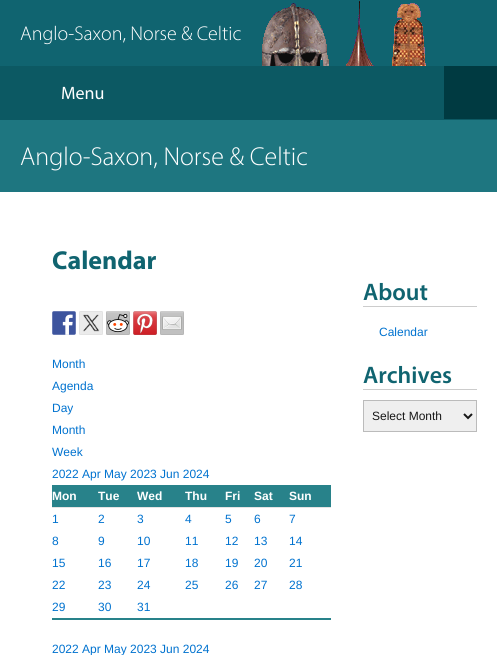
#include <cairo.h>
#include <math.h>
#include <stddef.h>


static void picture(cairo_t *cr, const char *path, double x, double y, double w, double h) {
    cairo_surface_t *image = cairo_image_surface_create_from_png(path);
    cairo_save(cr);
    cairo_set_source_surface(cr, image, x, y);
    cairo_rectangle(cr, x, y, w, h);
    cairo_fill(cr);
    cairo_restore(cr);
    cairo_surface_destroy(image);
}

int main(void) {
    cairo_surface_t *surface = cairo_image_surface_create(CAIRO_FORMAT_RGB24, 497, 655);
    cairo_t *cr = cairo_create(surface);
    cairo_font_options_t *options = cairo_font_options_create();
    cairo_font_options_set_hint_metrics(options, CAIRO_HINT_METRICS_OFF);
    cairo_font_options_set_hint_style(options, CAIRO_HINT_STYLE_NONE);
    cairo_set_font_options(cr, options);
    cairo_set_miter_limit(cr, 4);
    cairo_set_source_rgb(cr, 0.063, 0.392, 0.439);
    cairo_paint(cr);
    picture(cr, "img1.png", 262, 1, 164, 65);
    cairo_select_font_face(cr, "Myriad Light", CAIRO_FONT_SLANT_NORMAL, CAIRO_FONT_WEIGHT_NORMAL);
    cairo_set_font_size(cr, 20);
    cairo_set_source_rgb(cr, 1, 1, 1);
    cairo_move_to(cr, 20, 40);
    cairo_show_text(cr, "Anglo-Saxon, Norse & Celtic");
    cairo_set_source_rgb(cr, 0.047, 0.349, 0.388);
    cairo_rectangle(cr, 0, 66, 497, 54);
    cairo_fill(cr);
    cairo_select_font_face(cr, "Myriad", CAIRO_FONT_SLANT_NORMAL, CAIRO_FONT_WEIGHT_NORMAL);
    cairo_set_font_size(cr, 18);
    cairo_set_source_rgb(cr, 1, 1, 1);
    cairo_move_to(cr, 61, 99);
    cairo_show_text(cr, "Menu");
    cairo_set_source_rgb(cr, 0, 0.227, 0.255);
    cairo_rectangle(cr, 444, 66, 53, 53);
    cairo_fill(cr);
    cairo_set_source_rgb(cr, 0.118, 0.463, 0.502);
    cairo_rectangle(cr, 0, 120, 497, 72);
    cairo_fill(cr);
    cairo_select_font_face(cr, "Myriad Light", CAIRO_FONT_SLANT_NORMAL, CAIRO_FONT_WEIGHT_NORMAL);
    cairo_set_font_size(cr, 26);
    cairo_set_source_rgb(cr, 1, 1, 1);
    cairo_move_to(cr, 20, 165);
    cairo_show_text(cr, "Anglo-Saxon, Norse & Celtic");
    cairo_rectangle(cr, 0, 192, 497, 463);
    cairo_fill(cr);
    cairo_select_font_face(cr, "Myriad", CAIRO_FONT_SLANT_NORMAL, CAIRO_FONT_WEIGHT_BOLD);
    cairo_set_source_rgb(cr, 0.063, 0.392, 0.439);
    cairo_move_to(cr, 52, 269);
    cairo_show_text(cr, "Calendar");
    picture(cr, "img2.png", 52, 311, 24, 24);
    picture(cr, "img3.png", 79, 311, 24, 24);
    picture(cr, "img4.png", 106, 311, 24, 24);
    picture(cr, "img5.png", 133, 311, 24, 24);
    picture(cr, "img6.png", 160, 311, 24, 24);
    cairo_select_font_face(cr, "Liberation Sans", CAIRO_FONT_SLANT_NORMAL, CAIRO_FONT_WEIGHT_NORMAL);
    cairo_set_font_size(cr, 12);
    cairo_set_source_rgb(cr, 0, 0.447, 0.812);
    cairo_move_to(cr, 52, 368);
    cairo_show_text(cr, "Month");
    cairo_move_to(cr, 52, 390);
    cairo_show_text(cr, "Agenda");
    cairo_move_to(cr, 52, 412);
    cairo_show_text(cr, "Day");
    cairo_move_to(cr, 52, 434);
    cairo_show_text(cr, "Month");
    cairo_move_to(cr, 52, 456);
    cairo_show_text(cr, "Week");
    cairo_move_to(cr, 52, 478);
    cairo_show_text(cr, "2022 Apr May 2023 Jun 2024");
    cairo_set_source_rgb(cr, 0.157, 0.51, 0.541);
    cairo_rectangle(cr, 52, 618, 279, 2);
    cairo_fill(cr);
    cairo_rectangle(cr, 52, 485, 279, 22);
    cairo_fill(cr);
    cairo_select_font_face(cr, "Liberation Sans", CAIRO_FONT_SLANT_NORMAL, CAIRO_FONT_WEIGHT_BOLD);
    cairo_set_source_rgb(cr, 1, 1, 1);
    cairo_move_to(cr, 52, 500);
    cairo_show_text(cr, "Mon");
    cairo_move_to(cr, 98, 500);
    cairo_show_text(cr, "Tue");
    cairo_move_to(cr, 137, 500);
    cairo_show_text(cr, "Wed");
    cairo_move_to(cr, 185, 500);
    cairo_show_text(cr, "Thu");
    cairo_move_to(cr, 225, 500);
    cairo_show_text(cr, "Fri");
    cairo_move_to(cr, 254, 500);
    cairo_show_text(cr, "Sat");
    cairo_set_source_rgb(cr, 0.894, 0.894, 0.894);
    cairo_rectangle(cr, 52, 507, 279, 1);
    cairo_fill(cr);
    cairo_set_source_rgb(cr, 1, 1, 1);
    cairo_move_to(cr, 289, 500);
    cairo_show_text(cr, "Sun");
    cairo_select_font_face(cr, "Liberation Sans", CAIRO_FONT_SLANT_NORMAL, CAIRO_FONT_WEIGHT_NORMAL);
    cairo_set_source_rgb(cr, 0, 0.447, 0.812);
    cairo_move_to(cr, 52, 523);
    cairo_show_text(cr, "1");
    cairo_move_to(cr, 98, 523);
    cairo_show_text(cr, "2");
    cairo_move_to(cr, 137, 523);
    cairo_show_text(cr, "3");
    cairo_move_to(cr, 185, 523);
    cairo_show_text(cr, "4");
    cairo_move_to(cr, 225, 523);
    cairo_show_text(cr, "5");
    cairo_move_to(cr, 254, 523);
    cairo_show_text(cr, "6");
    cairo_move_to(cr, 289, 523);
    cairo_show_text(cr, "7");
    cairo_move_to(cr, 52, 545);
    cairo_show_text(cr, "8");
    cairo_move_to(cr, 98, 545);
    cairo_show_text(cr, "9");
    cairo_move_to(cr, 137, 545);
    cairo_show_text(cr, "10");
    cairo_move_to(cr, 185, 545);
    cairo_show_text(cr, "11");
    cairo_move_to(cr, 225, 545);
    cairo_show_text(cr, "12");
    cairo_move_to(cr, 254, 545);
    cairo_show_text(cr, "13");
    cairo_move_to(cr, 289, 545);
    cairo_show_text(cr, "14");
    cairo_move_to(cr, 52, 567);
    cairo_show_text(cr, "15");
    cairo_move_to(cr, 98, 567);
    cairo_show_text(cr, "16");
    cairo_move_to(cr, 137, 567);
    cairo_show_text(cr, "17");
    cairo_move_to(cr, 185, 567);
    cairo_show_text(cr, "18");
    cairo_move_to(cr, 225, 567);
    cairo_show_text(cr, "19");
    cairo_move_to(cr, 254, 567);
    cairo_show_text(cr, "20");
    cairo_move_to(cr, 289, 567);
    cairo_show_text(cr, "21");
    cairo_move_to(cr, 52, 589);
    cairo_show_text(cr, "22");
    cairo_move_to(cr, 98, 589);
    cairo_show_text(cr, "23");
    cairo_move_to(cr, 137, 589);
    cairo_show_text(cr, "24");
    cairo_move_to(cr, 185, 589);
    cairo_show_text(cr, "25");
    cairo_move_to(cr, 225, 589);
    cairo_show_text(cr, "26");
    cairo_move_to(cr, 254, 589);
    cairo_show_text(cr, "27");
    cairo_move_to(cr, 289, 589);
    cairo_show_text(cr, "28");
    cairo_move_to(cr, 52, 611);
    cairo_show_text(cr, "29");
    cairo_move_to(cr, 98, 611);
    cairo_show_text(cr, "30");
    cairo_move_to(cr, 137, 611);
    cairo_show_text(cr, "31");
    cairo_move_to(cr, 52, 653);
    cairo_show_text(cr, "2022 Apr May 2023 Jun 2024");
    cairo_set_source_rgb(cr, 0.8, 0.8, 0.8);
    cairo_rectangle(cr, 363, 306, 114, 1);
    cairo_fill(cr);
    cairo_select_font_face(cr, "Myriad SemiBold", CAIRO_FONT_SLANT_NORMAL, CAIRO_FONT_WEIGHT_NORMAL);
    cairo_set_font_size(cr, 24);
    cairo_set_source_rgb(cr, 0.063, 0.392, 0.439);
    cairo_move_to(cr, 363, 300);
    cairo_show_text(cr, "About");
    cairo_select_font_face(cr, "Liberation Sans", CAIRO_FONT_SLANT_NORMAL, CAIRO_FONT_WEIGHT_NORMAL);
    cairo_set_font_size(cr, 12);
    cairo_set_source_rgb(cr, 0, 0.447, 0.812);
    cairo_move_to(cr, 379, 336);
    cairo_show_text(cr, "Calendar");
    cairo_set_source_rgb(cr, 0.8, 0.8, 0.8);
    cairo_rectangle(cr, 363, 389, 114, 1);
    cairo_fill(cr);
    cairo_select_font_face(cr, "Myriad SemiBold", CAIRO_FONT_SLANT_NORMAL, CAIRO_FONT_WEIGHT_NORMAL);
    cairo_set_font_size(cr, 24);
    cairo_set_source_rgb(cr, 0.063, 0.392, 0.439);
    cairo_move_to(cr, 363, 383);
    cairo_show_text(cr, "Archives");
    cairo_set_source_rgb(cr, 0.937, 0.937, 0.937);
    cairo_rectangle(cr, 363.5, 400.5, 113, 31);
    cairo_fill_preserve(cr);
    cairo_set_source_rgb(cr, 0.733, 0.733, 0.733);
    cairo_set_line_width(cr, 1);
    cairo_stroke(cr);
    cairo_new_path(cr);
    cairo_move_to(cr, 464, 414);
    cairo_line_to(cr, 468, 418);
    cairo_line_to(cr, 472, 414);
    cairo_set_source_rgb(cr, 0.09, 0.09, 0.09);
    cairo_set_line_width(cr, 2);
    cairo_stroke(cr);
    cairo_select_font_face(cr, "Liberation Sans", CAIRO_FONT_SLANT_NORMAL, CAIRO_FONT_WEIGHT_NORMAL);
    cairo_set_font_size(cr, 12);
    cairo_move_to(cr, 372, 420);
    cairo_show_text(cr, "Select Month");
    cairo_surface_write_to_png(surface, "page.png");
    cairo_font_options_destroy(options);
    cairo_destroy(cr);
    cairo_surface_destroy(surface);
    return 0;
}
